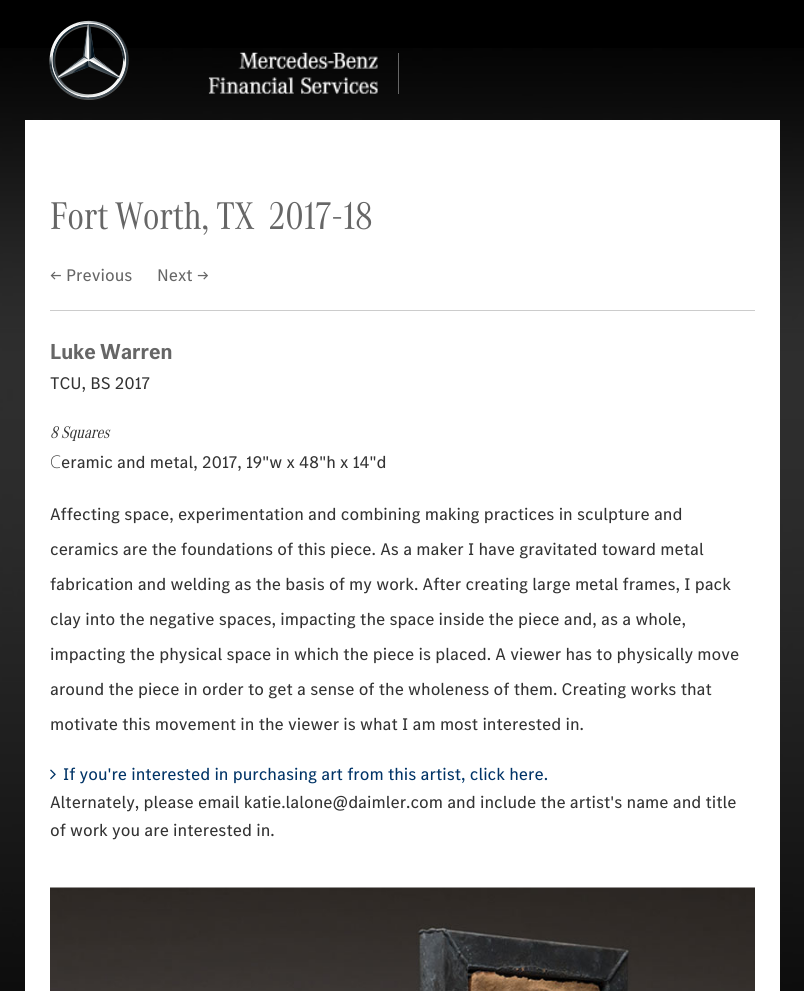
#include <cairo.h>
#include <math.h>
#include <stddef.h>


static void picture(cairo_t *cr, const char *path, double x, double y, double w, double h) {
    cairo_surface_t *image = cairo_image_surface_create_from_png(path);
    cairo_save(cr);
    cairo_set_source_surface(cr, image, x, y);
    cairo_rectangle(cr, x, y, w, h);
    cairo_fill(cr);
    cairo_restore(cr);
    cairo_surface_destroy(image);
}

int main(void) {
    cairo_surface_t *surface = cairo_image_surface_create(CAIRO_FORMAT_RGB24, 804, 991);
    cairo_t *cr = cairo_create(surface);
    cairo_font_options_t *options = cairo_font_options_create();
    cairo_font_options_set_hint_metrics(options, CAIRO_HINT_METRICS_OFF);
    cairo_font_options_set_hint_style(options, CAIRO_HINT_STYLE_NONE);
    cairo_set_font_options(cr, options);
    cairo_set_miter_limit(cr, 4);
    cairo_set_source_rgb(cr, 0, 0, 0);
    cairo_paint(cr);
    picture(cr, "img1.png", 0, 48, 804, 943);
    picture(cr, "img2.png", 49, 20, 80, 80);
    cairo_set_source_rgb(cr, 0.4, 0.4, 0.4);
    cairo_rectangle(cr, 398, 53, 1, 41);
    cairo_fill(cr);
    picture(cr, "img3.png", 208, 52, 170, 42);
    cairo_set_source_rgb(cr, 1, 1, 1);
    cairo_rectangle(cr, 25, 120, 755, 871);
    cairo_fill(cr);
    cairo_select_font_face(cr, "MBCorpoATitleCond", CAIRO_FONT_SLANT_NORMAL, CAIRO_FONT_WEIGHT_NORMAL);
    cairo_set_font_size(cr, 40);
    cairo_set_source_rgb(cr, 0.4, 0.4, 0.4);
    cairo_move_to(cr, 50, 229);
    cairo_show_text(cr, "Fort Worth, TX  2017-18");
    cairo_select_font_face(cr, "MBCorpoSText", CAIRO_FONT_SLANT_NORMAL, CAIRO_FONT_WEIGHT_NORMAL);
    cairo_set_font_size(cr, 17.5);
    cairo_move_to(cr, 50, 281);
    cairo_show_text(cr, "← Previous");
    cairo_move_to(cr, 157, 281);
    cairo_show_text(cr, "Next →");
    cairo_set_source_rgb(cr, 0.8, 0.8, 0.8);
    cairo_rectangle(cr, 50, 310, 705, 1);
    cairo_fill(cr);
    cairo_select_font_face(cr, "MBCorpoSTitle", CAIRO_FONT_SLANT_NORMAL, CAIRO_FONT_WEIGHT_BOLD);
    cairo_set_font_size(cr, 22.5);
    cairo_set_source_rgb(cr, 0.4, 0.4, 0.4);
    cairo_move_to(cr, 50, 359);
    cairo_show_text(cr, "Luke Warren");
    cairo_select_font_face(cr, "MBCorpoSText", CAIRO_FONT_SLANT_NORMAL, CAIRO_FONT_WEIGHT_NORMAL);
    cairo_set_font_size(cr, 17.5);
    cairo_set_source_rgb(cr, 0.2, 0.2, 0.2);
    cairo_move_to(cr, 50, 389);
    cairo_show_text(cr, "TCU, BS 2017");
    cairo_select_font_face(cr, "MBCorpoATitleCond", CAIRO_FONT_SLANT_ITALIC, CAIRO_FONT_WEIGHT_NORMAL);
    cairo_move_to(cr, 50, 438);
    cairo_show_text(cr, "8 Squares");
    cairo_select_font_face(cr, "Noto Sans ExtraLight", CAIRO_FONT_SLANT_NORMAL, CAIRO_FONT_WEIGHT_NORMAL);
    cairo_move_to(cr, 50, 468);
    cairo_show_text(cr, "C");
    cairo_select_font_face(cr, "MBCorpoSText", CAIRO_FONT_SLANT_NORMAL, CAIRO_FONT_WEIGHT_NORMAL);
    cairo_move_to(cr, 61, 468);
    cairo_show_text(cr, "eramic and metal, 2017, 19\"w x 48\"h x 14\"d");
    cairo_move_to(cr, 50, 520);
    cairo_show_text(cr, "Affecting space, experimentation and combining making practices in sculpture and");
    cairo_move_to(cr, 50, 555);
    cairo_show_text(cr, "ceramics are the foundations of this piece. As a maker I have gravitated toward metal");
    cairo_move_to(cr, 50, 590);
    cairo_show_text(cr, "fabrication and welding as the basis of my work. After creating large metal frames, I pack");
    cairo_move_to(cr, 50, 625);
    cairo_show_text(cr, "clay into the negative spaces, impacting the space inside the piece and, as a whole,");
    cairo_move_to(cr, 50, 660);
    cairo_show_text(cr, "impacting the physical space in which the piece is placed. A viewer has to physically move");
    cairo_move_to(cr, 50, 695);
    cairo_show_text(cr, "around the piece in order to get a sense of the wholeness of them. Creating works that");
    cairo_move_to(cr, 50, 730);
    cairo_show_text(cr, "motivate this movement in the viewer is what I am most interested in.");
    picture(cr, "img4.png", 50, 769, 6, 11);
    cairo_set_source_rgb(cr, 0, 0.2, 0.4);
    cairo_move_to(cr, 63, 780);
    cairo_show_text(cr, "If you're interested in purchasing art from this artist, click here.");
    cairo_set_source_rgb(cr, 0.2, 0.2, 0.2);
    cairo_move_to(cr, 50, 808);
    cairo_show_text(cr, "Alternately, please email katie.lalone@daimler.com and include the artist's name and title");
    cairo_move_to(cr, 50, 836);
    cairo_show_text(cr, "of work you are interested in.");
    picture(cr, "img5.png", 50, 887, 705, 104);
    cairo_surface_write_to_png(surface, "page.png");
    cairo_font_options_destroy(options);
    cairo_destroy(cr);
    cairo_surface_destroy(surface);
    return 0;
}
